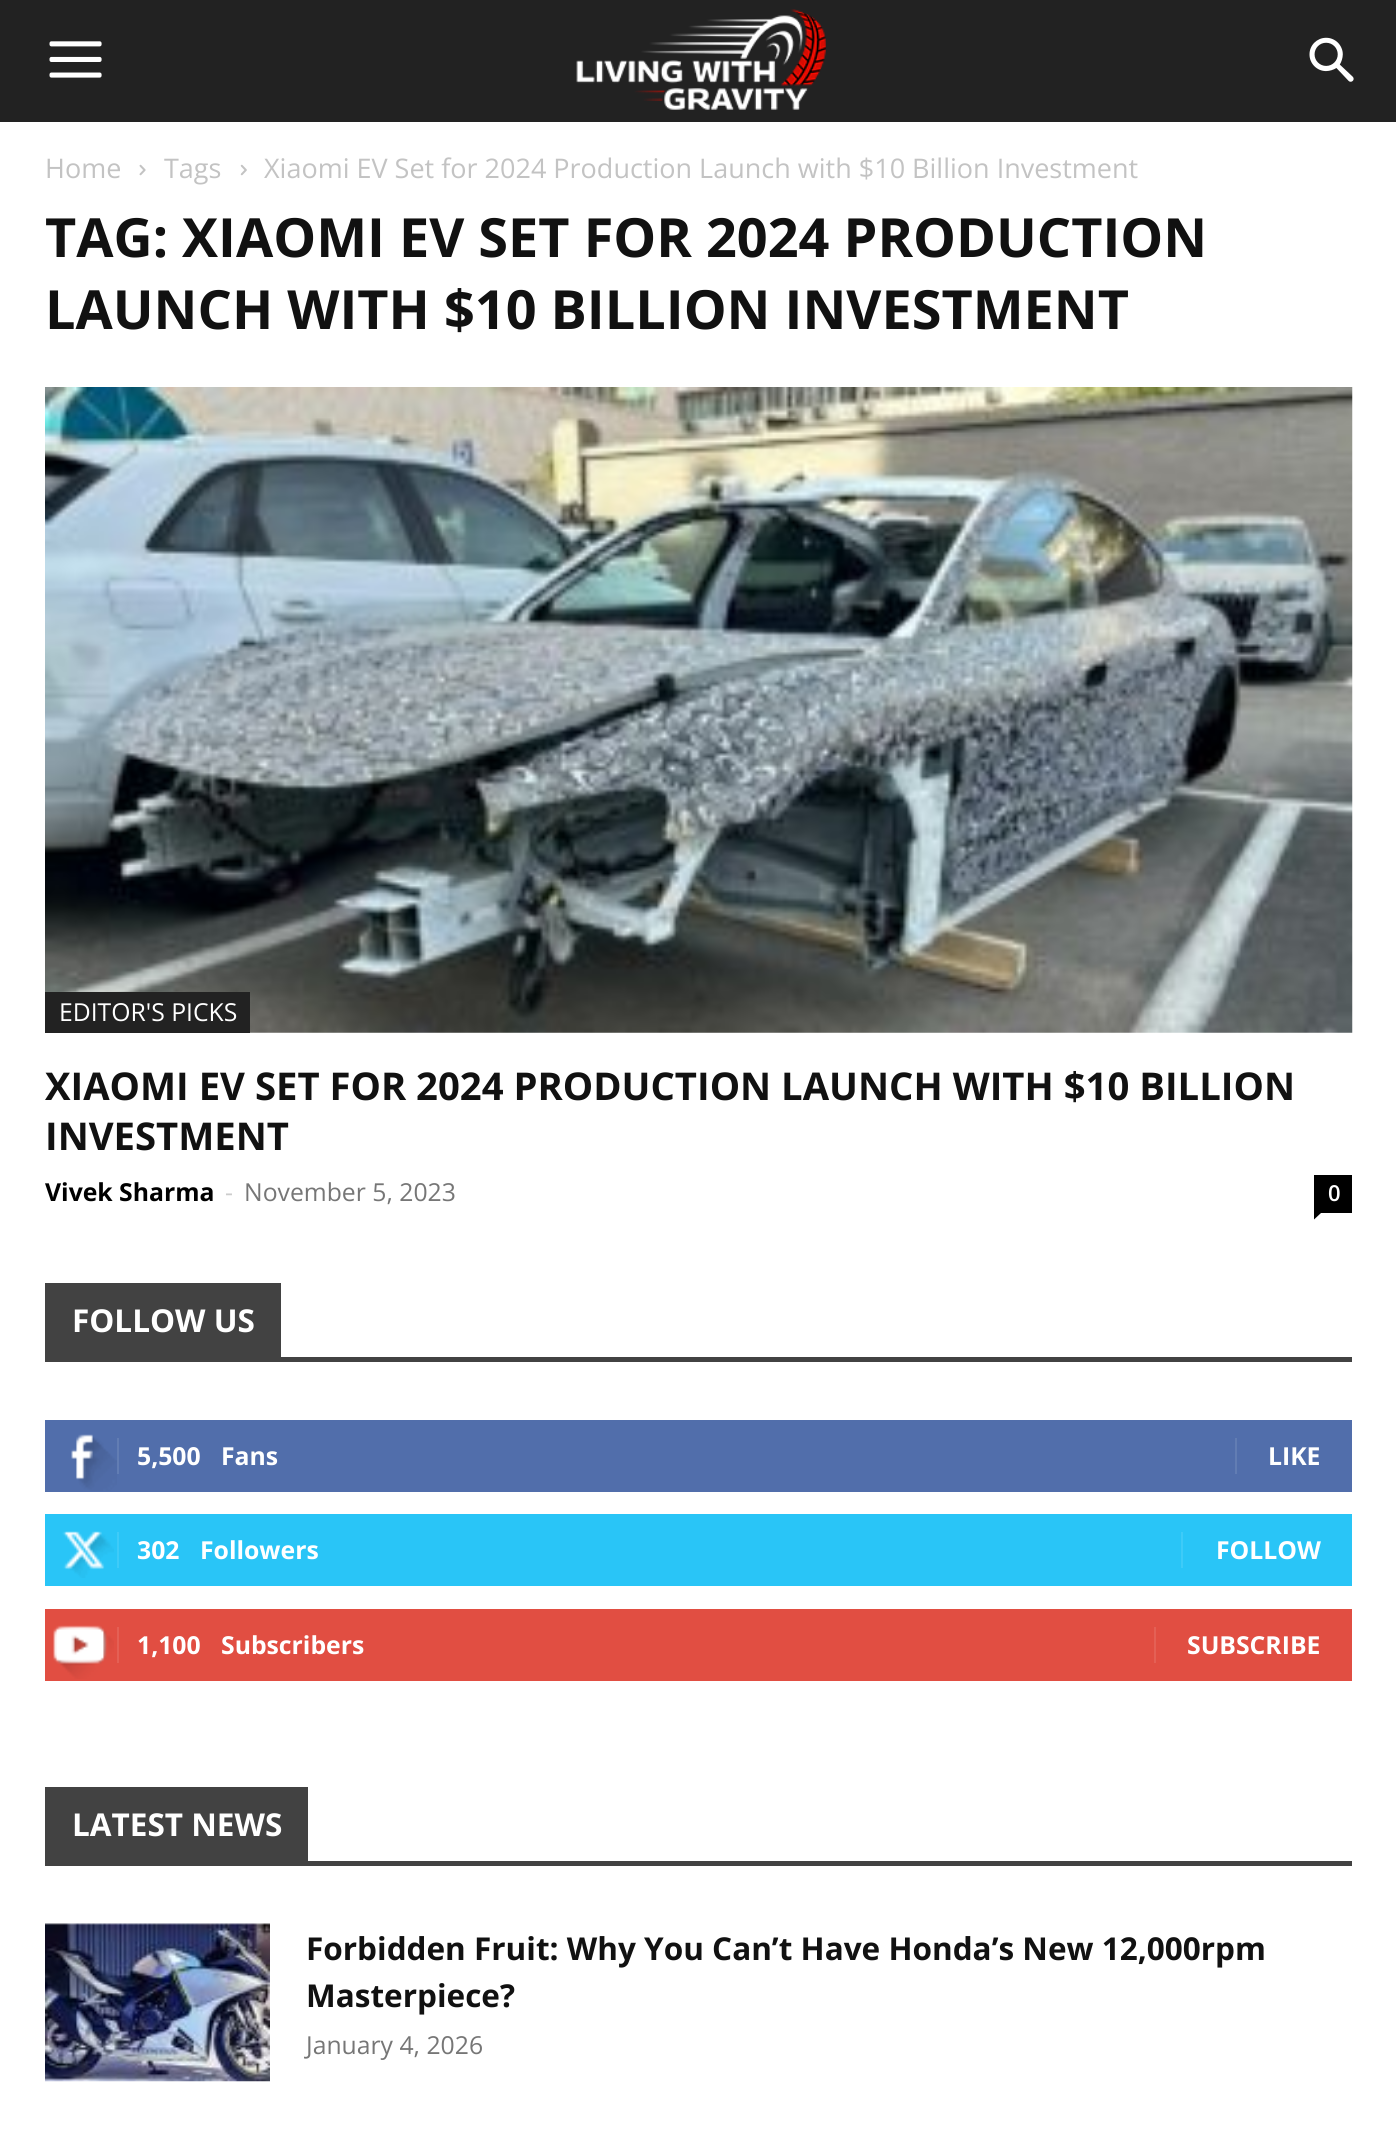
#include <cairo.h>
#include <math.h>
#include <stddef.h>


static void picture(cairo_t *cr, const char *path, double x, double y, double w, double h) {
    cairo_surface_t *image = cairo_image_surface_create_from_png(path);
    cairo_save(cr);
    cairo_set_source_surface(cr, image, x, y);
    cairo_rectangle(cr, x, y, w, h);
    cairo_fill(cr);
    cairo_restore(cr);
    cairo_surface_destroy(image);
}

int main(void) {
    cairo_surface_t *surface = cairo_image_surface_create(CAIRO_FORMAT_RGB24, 1396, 2132);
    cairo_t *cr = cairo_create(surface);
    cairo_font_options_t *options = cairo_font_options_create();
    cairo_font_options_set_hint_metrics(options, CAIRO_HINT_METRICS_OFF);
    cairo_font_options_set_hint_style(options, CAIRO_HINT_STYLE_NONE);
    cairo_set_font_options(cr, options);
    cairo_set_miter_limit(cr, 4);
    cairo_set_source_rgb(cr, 1, 1, 1);
    cairo_paint(cr);
    cairo_set_source_rgb(cr, 0.133, 0.133, 0.133);
    cairo_rectangle(cr, 0, 0, 1396, 122);
    cairo_fill(cr);
    picture(cr, "img1.png", 49, 41, 53, 37);
    picture(cr, "img2.png", 576, 9, 250, 101);
    picture(cr, "img3.png", 1309, 37, 45, 45);
    cairo_select_font_face(cr, "Open Sans", CAIRO_FONT_SLANT_NORMAL, CAIRO_FONT_WEIGHT_NORMAL);
    cairo_set_font_size(cr, 27);
    cairo_set_source_rgb(cr, 0.765, 0.765, 0.765);
    cairo_move_to(cr, 45, 178);
    cairo_show_text(cr, "Home");
    picture(cr, "img4.png", 139, 164, 7, 12);
    cairo_move_to(cr, 164, 178);
    cairo_show_text(cr, "Tags");
    picture(cr, "img5.png", 240, 164, 7, 12);
    cairo_move_to(cr, 264, 178);
    cairo_show_text(cr, "Xiaomi EV Set for 2024 Production Launch with $10 Billion Investment");
    cairo_select_font_face(cr, "Open Sans", CAIRO_FONT_SLANT_NORMAL, CAIRO_FONT_WEIGHT_BOLD);
    cairo_set_font_size(cr, 54);
    cairo_set_source_rgb(cr, 0.067, 0.067, 0.067);
    cairo_move_to(cr, 45, 257);
    cairo_show_text(cr, "TAG: XIAOMI EV SET FOR 2024 PRODUCTION");
    cairo_move_to(cr, 45, 329);
    cairo_show_text(cr, "LAUNCH WITH $10 BILLION INVESTMENT");
    picture(cr, "img6.png", 45, 387, 1308, 646);
    cairo_set_source_rgb(cr, 0.133, 0.133, 0.133);
    cairo_rectangle(cr, 45, 992, 205, 41);
    cairo_fill(cr);
    cairo_select_font_face(cr, "Open Sans", CAIRO_FONT_SLANT_NORMAL, CAIRO_FONT_WEIGHT_NORMAL);
    cairo_set_font_size(cr, 24.75);
    cairo_set_source_rgb(cr, 1, 1, 1);
    cairo_move_to(cr, 59, 1021);
    cairo_show_text(cr, "EDITOR'S PICKS");
    cairo_select_font_face(cr, "Open Sans", CAIRO_FONT_SLANT_NORMAL, CAIRO_FONT_WEIGHT_BOLD);
    cairo_set_font_size(cr, 38.25);
    cairo_set_source_rgb(cr, 0.067, 0.067, 0.067);
    cairo_move_to(cr, 45, 1100);
    cairo_show_text(cr, "XIAOMI EV SET FOR 2024 PRODUCTION LAUNCH WITH $10 BILLION");
    cairo_move_to(cr, 45, 1150);
    cairo_show_text(cr, "INVESTMENT");
    cairo_set_font_size(cr, 24.75);
    cairo_set_source_rgb(cr, 0, 0, 0);
    cairo_move_to(cr, 45, 1201);
    cairo_show_text(cr, "Vivek Sharma");
    cairo_select_font_face(cr, "Open Sans", CAIRO_FONT_SLANT_NORMAL, CAIRO_FONT_WEIGHT_NORMAL);
    cairo_set_source_rgb(cr, 0.8, 0.8, 0.8);
    cairo_move_to(cr, 225, 1201);
    cairo_show_text(cr, "-");
    cairo_set_source_rgb(cr, 0.463, 0.463, 0.463);
    cairo_move_to(cr, 244, 1201);
    cairo_show_text(cr, "November 5, 2023");
    cairo_set_source_rgb(cr, 0, 0, 0);
    cairo_rectangle(cr, 1314, 1175, 38, 38);
    cairo_fill(cr);
    cairo_select_font_face(cr, "Open Sans SemiBold", CAIRO_FONT_SLANT_NORMAL, CAIRO_FONT_WEIGHT_NORMAL);
    cairo_set_font_size(cr, 22);
    cairo_set_source_rgb(cr, 1, 1, 1);
    cairo_move_to(cr, 1328, 1201);
    cairo_show_text(cr, "0");
    cairo_set_source_rgb(cr, 0, 0, 0);
    cairo_new_path(cr);
    cairo_move_to(cr, 1314, 1213);
    cairo_line_to(cr, 1321, 1213);
    cairo_line_to(cr, 1314, 1219.5);
    cairo_close_path(cr);
    cairo_fill(cr);
    cairo_set_source_rgb(cr, 0.259, 0.259, 0.259);
    cairo_rectangle(cr, 45, 1357, 1307, 5);
    cairo_fill(cr);
    cairo_rectangle(cr, 45, 1283, 236, 74);
    cairo_fill(cr);
    cairo_select_font_face(cr, "Open Sans", CAIRO_FONT_SLANT_NORMAL, CAIRO_FONT_WEIGHT_BOLD);
    cairo_set_font_size(cr, 31.5);
    cairo_set_source_rgb(cr, 1, 1, 1);
    cairo_move_to(cr, 72, 1332);
    cairo_show_text(cr, "FOLLOW US");
    cairo_set_source_rgb(cr, 0.318, 0.431, 0.671);
    cairo_rectangle(cr, 45, 1420, 1307, 72);
    cairo_fill(cr);
    picture(cr, "img7.png", 71, 1434, 46, 57);
    cairo_set_source_rgb(cr, 0.384, 0.49, 0.702);
    cairo_rectangle(cr, 117, 1438, 2, 36);
    cairo_fill(cr);
    cairo_set_font_size(cr, 24.75);
    cairo_set_source_rgb(cr, 1, 1, 1);
    cairo_move_to(cr, 137, 1465);
    cairo_show_text(cr, "5,500");
    cairo_move_to(cr, 221, 1465);
    cairo_show_text(cr, "Fans");
    cairo_set_source_rgb(cr, 0.384, 0.49, 0.702);
    cairo_rectangle(cr, 1235, 1438, 2, 36);
    cairo_fill(cr);
    cairo_set_source_rgb(cr, 1, 1, 1);
    cairo_move_to(cr, 1268, 1465);
    cairo_show_text(cr, "LIKE");
    cairo_set_source_rgb(cr, 0.161, 0.773, 0.965);
    cairo_rectangle(cr, 45, 1514, 1307, 72);
    cairo_fill(cr);
    picture(cr, "img8.png", 62, 1531, 52, 47);
    cairo_set_source_rgb(cr, 0.243, 0.796, 0.969);
    cairo_rectangle(cr, 117, 1532, 2, 36);
    cairo_fill(cr);
    cairo_set_source_rgb(cr, 1, 1, 1);
    cairo_move_to(cr, 137, 1559);
    cairo_show_text(cr, "302");
    cairo_move_to(cr, 200, 1559);
    cairo_show_text(cr, "Followers");
    cairo_set_source_rgb(cr, 0.243, 0.796, 0.969);
    cairo_rectangle(cr, 1181, 1532, 2, 36);
    cairo_fill(cr);
    cairo_set_source_rgb(cr, 1, 1, 1);
    cairo_move_to(cr, 1216, 1559);
    cairo_show_text(cr, "FOLLOW");
    cairo_set_source_rgb(cr, 0.882, 0.306, 0.259);
    cairo_rectangle(cr, 45, 1609, 1307, 72);
    cairo_fill(cr);
    picture(cr, "img9.png", 53, 1625, 61, 54);
    cairo_set_source_rgb(cr, 0.894, 0.376, 0.333);
    cairo_rectangle(cr, 117, 1627, 2, 36);
    cairo_fill(cr);
    cairo_set_source_rgb(cr, 1, 1, 1);
    cairo_move_to(cr, 137, 1654);
    cairo_show_text(cr, "1,100");
    cairo_move_to(cr, 221, 1654);
    cairo_show_text(cr, "Subscribers");
    cairo_set_source_rgb(cr, 0.894, 0.376, 0.333);
    cairo_rectangle(cr, 1154, 1627, 2, 36);
    cairo_fill(cr);
    cairo_set_source_rgb(cr, 1, 1, 1);
    cairo_move_to(cr, 1187, 1654);
    cairo_show_text(cr, "SUBSCRIBE");
    cairo_set_source_rgb(cr, 0.259, 0.259, 0.259);
    cairo_rectangle(cr, 45, 1861, 1307, 5);
    cairo_fill(cr);
    cairo_rectangle(cr, 45, 1787, 263, 74);
    cairo_fill(cr);
    cairo_set_font_size(cr, 31.5);
    cairo_set_source_rgb(cr, 1, 1, 1);
    cairo_move_to(cr, 72, 1836);
    cairo_show_text(cr, "LATEST NEWS");
    picture(cr, "img10.png", 45, 1923, 225, 159);
    cairo_set_source_rgb(cr, 0.067, 0.067, 0.067);
    cairo_move_to(cr, 306, 1960);
    cairo_show_text(cr, "Forbidden Fruit: Why You Can’t Have Honda’s New 12,000rpm");
    cairo_move_to(cr, 306, 2007);
    cairo_show_text(cr, "Masterpiece?");
    cairo_select_font_face(cr, "Open Sans", CAIRO_FONT_SLANT_NORMAL, CAIRO_FONT_WEIGHT_NORMAL);
    cairo_set_font_size(cr, 24.75);
    cairo_set_source_rgb(cr, 0.463, 0.463, 0.463);
    cairo_move_to(cr, 306, 2054);
    cairo_show_text(cr, "January 4, 2026");
    cairo_surface_write_to_png(surface, "page.png");
    cairo_font_options_destroy(options);
    cairo_destroy(cr);
    cairo_surface_destroy(surface);
    return 0;
}
